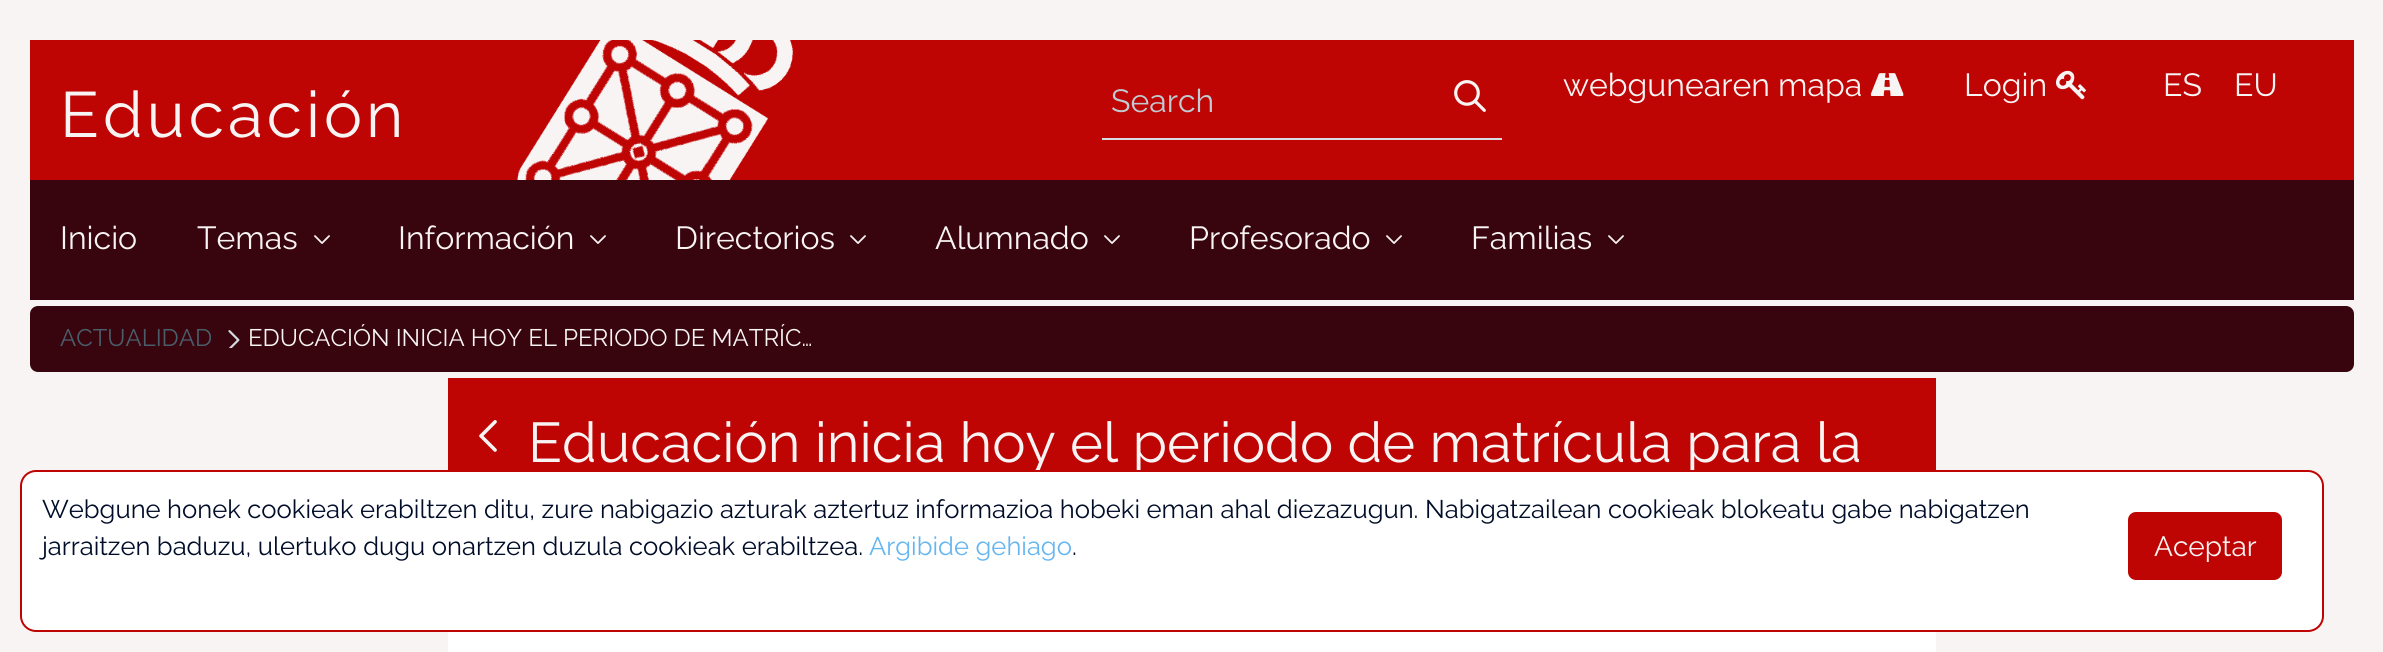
#include <cairo.h>
#include <math.h>
#include <stddef.h>


static void spaced_text(cairo_t *cr, double x, double y, const char *s, double letter, double word) {
    cairo_move_to(cr, x, y);
    while (*s) {
        char ch[5] = {0};
        int n = 0;
        do ch[n++] = *s++; while ((*s & 0xC0) == 0x80);
        cairo_show_text(cr, ch);
        cairo_rel_move_to(cr, letter + word * (*ch == ' '), 0);
    }
}

static void round_rect(cairo_t *cr, double x, double y, double w, double h, double r) {
    cairo_new_sub_path(cr);
    cairo_arc(cr, x + w - r, y + h - r, r, 0, M_PI / 2);
    cairo_arc(cr, x + r, y + h - r, r, M_PI / 2, M_PI);
    cairo_arc(cr, x + r, y + r, r, M_PI, 1.5 * M_PI);
    cairo_arc(cr, x + w - r, y + r, r, 1.5 * M_PI, 2 * M_PI);
    cairo_close_path(cr);
}

static void picture(cairo_t *cr, const char *path, double x, double y, double w, double h) {
    cairo_surface_t *image = cairo_image_surface_create_from_png(path);
    cairo_save(cr);
    cairo_set_source_surface(cr, image, x, y);
    cairo_rectangle(cr, x, y, w, h);
    cairo_fill(cr);
    cairo_restore(cr);
    cairo_surface_destroy(image);
}

int main(void) {
    cairo_surface_t *surface = cairo_image_surface_create(CAIRO_FORMAT_RGB24, 2383, 652);
    cairo_t *cr = cairo_create(surface);
    cairo_font_options_t *options = cairo_font_options_create();
    cairo_font_options_set_hint_metrics(options, CAIRO_HINT_METRICS_OFF);
    cairo_font_options_set_hint_style(options, CAIRO_HINT_STYLE_NONE);
    cairo_set_font_options(cr, options);
    cairo_set_miter_limit(cr, 4);
    cairo_set_source_rgb(cr, 0.969, 0.957, 0.953);
    cairo_paint(cr);
    cairo_set_source_rgb(cr, 0.749, 0.016, 0.016);
    cairo_rectangle(cr, 30, 40, 2324, 140);
    cairo_fill(cr);
    picture(cr, "img1.png", 517, 40, 277, 140);
    cairo_select_font_face(cr, "Raleway Thin", CAIRO_FONT_SLANT_NORMAL, CAIRO_FONT_WEIGHT_NORMAL);
    cairo_set_font_size(cr, 64);
    cairo_set_source_rgb(cr, 0.969, 0.957, 0.953);
    spaced_text(cr, 60, 137, "Educación", 4, 0);
    cairo_set_font_size(cr, 32);
    cairo_move_to(cr, 1563, 96);
    cairo_show_text(cr, "webgunearen mapa");
    picture(cr, "img2.png", 1870, 73, 34, 23);
    cairo_move_to(cr, 1964, 96);
    cairo_show_text(cr, "Login");
    picture(cr, "img3.png", 2056, 70, 30, 30);
    cairo_move_to(cr, 2163, 96);
    cairo_show_text(cr, "ES");
    cairo_move_to(cr, 2234, 96);
    cairo_show_text(cr, "EU");
    cairo_set_source_rgb(cr, 0.839, 0.863, 0.886);
    cairo_rectangle(cr, 1102, 138, 400, 2);
    cairo_fill(cr);
    cairo_set_source_rgb(cr, 0.753, 0.8, 0.827);
    cairo_move_to(cr, 1111, 112);
    cairo_show_text(cr, "Search");
    picture(cr, "img4.png", 1454, 80, 32, 32);
    cairo_set_source_rgb(cr, 0.22, 0.016, 0.055);
    cairo_rectangle(cr, 30, 180, 2324, 120);
    cairo_fill(cr);
    cairo_set_source_rgb(cr, 0.969, 0.957, 0.953);
    cairo_move_to(cr, 60, 249);
    cairo_show_text(cr, "Inicio");
    cairo_move_to(cr, 197, 249);
    cairo_show_text(cr, "Temas");
    picture(cr, "img5.png", 314, 235, 16, 9);
    cairo_move_to(cr, 398, 249);
    cairo_show_text(cr, "Información");
    picture(cr, "img5.png", 590, 235, 16, 9);
    cairo_move_to(cr, 675, 249);
    cairo_show_text(cr, "Directorios");
    picture(cr, "img5.png", 850, 235, 16, 9);
    cairo_move_to(cr, 935, 249);
    cairo_show_text(cr, "Alumnado");
    picture(cr, "img5.png", 1104, 235, 16, 9);
    cairo_move_to(cr, 1189, 249);
    cairo_show_text(cr, "Profesorado");
    picture(cr, "img5.png", 1386, 235, 16, 9);
    cairo_move_to(cr, 1471, 249);
    cairo_show_text(cr, "Familias");
    picture(cr, "img5.png", 1608, 235, 16, 9);
    cairo_set_source_rgb(cr, 0.22, 0.016, 0.055);
    round_rect(cr, 30, 306, 2324, 66, 8);
    cairo_fill(cr);
    cairo_set_font_size(cr, 24);
    cairo_set_source_rgb(cr, 0.29, 0.369, 0.416);
    cairo_move_to(cr, 60, 346);
    cairo_show_text(cr, "ACTUALIDAD");
    picture(cr, "img6.png", 228, 330, 12, 18);
    cairo_set_source_rgb(cr, 0.969, 0.957, 0.953);
    cairo_move_to(cr, 248, 346);
    cairo_show_text(cr, "EDUCACIÓN INICIA HOY EL PERIODO DE MATRÍC…");
    cairo_set_source_rgb(cr, 1, 1, 1);
    cairo_rectangle(cr, 448, 632, 1488, 20);
    cairo_fill(cr);
    cairo_set_source_rgb(cr, 0.749, 0.016, 0.016);
    cairo_rectangle(cr, 448, 378, 1488, 92);
    cairo_fill(cr);
    picture(cr, "img7.png", 479, 420, 18, 32);
    cairo_set_font_size(cr, 56);
    cairo_set_source_rgb(cr, 0.969, 0.957, 0.953);
    cairo_move_to(cr, 528, 462);
    cairo_show_text(cr, "Educación inicia hoy el periodo de matrícula para la");
    cairo_set_source_rgb(cr, 1, 1, 1);
    round_rect(cr, 21, 471, 2302, 160, 15);
    cairo_fill_preserve(cr);
    cairo_set_source_rgb(cr, 0.749, 0.016, 0.016);
    cairo_stroke(cr);
    cairo_set_font_size(cr, 25.6);
    cairo_set_source_rgb(cr, 0, 0.047, 0.157);
    cairo_move_to(cr, 42, 518);
    cairo_show_text(cr, "Webgune honek cookieak erabiltzen ditu, zure nabigazio azturak aztertuz informazioa hobeki eman ahal diezazugun. Nabigatzailean cookieak blokeatu gabe nabigatzen");
    cairo_move_to(cr, 42, 555);
    cairo_show_text(cr, "jarraitzen baduzu, ulertuko dugu onartzen duzula cookieak erabiltzea.");
    cairo_set_source_rgb(cr, 0.396, 0.714, 0.941);
    cairo_move_to(cr, 869, 555);
    cairo_show_text(cr, "Argibide gehiago");
    cairo_set_source_rgb(cr, 0, 0.047, 0.157);
    cairo_move_to(cr, 1072, 555);
    cairo_show_text(cr, ".");
    cairo_set_source_rgb(cr, 0.749, 0.016, 0.016);
    round_rect(cr, 2128, 512, 154, 68, 8);
    cairo_fill(cr);
    cairo_set_font_size(cr, 28);
    cairo_set_source_rgb(cr, 0.969, 0.957, 0.953);
    cairo_move_to(cr, 2154, 556);
    cairo_show_text(cr, "Aceptar");
    cairo_surface_write_to_png(surface, "page.png");
    cairo_font_options_destroy(options);
    cairo_destroy(cr);
    cairo_surface_destroy(surface);
    return 0;
}
